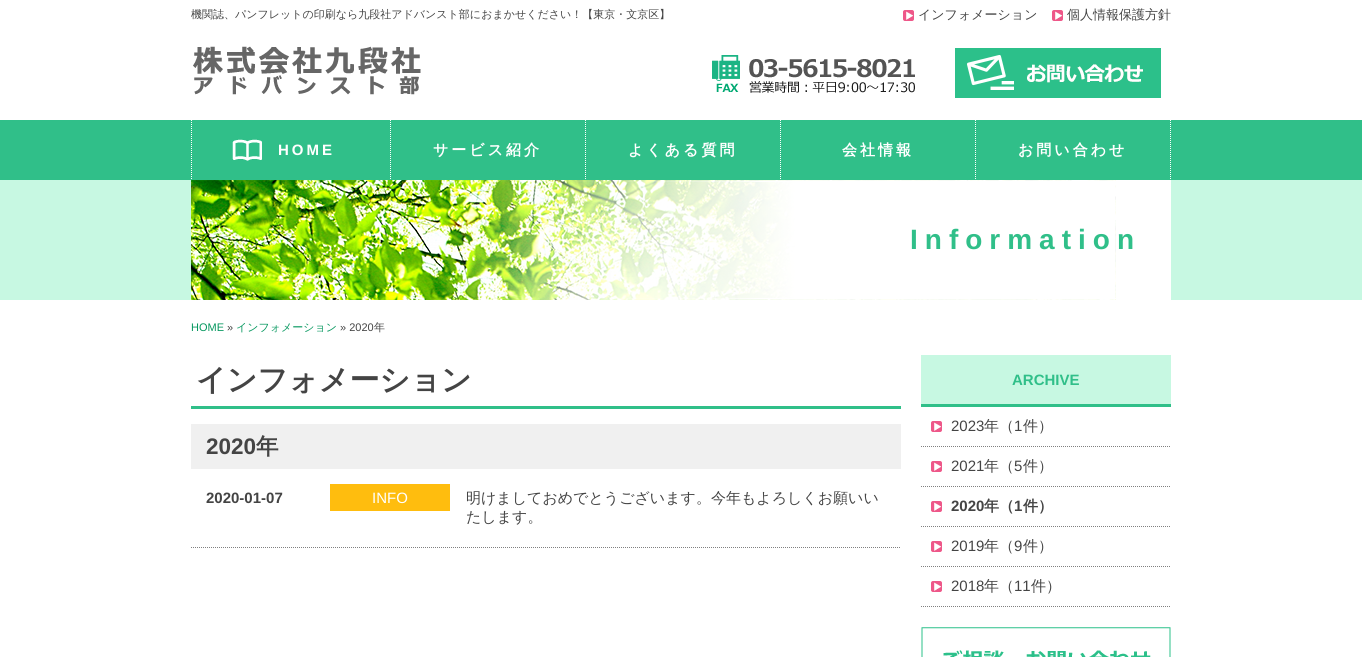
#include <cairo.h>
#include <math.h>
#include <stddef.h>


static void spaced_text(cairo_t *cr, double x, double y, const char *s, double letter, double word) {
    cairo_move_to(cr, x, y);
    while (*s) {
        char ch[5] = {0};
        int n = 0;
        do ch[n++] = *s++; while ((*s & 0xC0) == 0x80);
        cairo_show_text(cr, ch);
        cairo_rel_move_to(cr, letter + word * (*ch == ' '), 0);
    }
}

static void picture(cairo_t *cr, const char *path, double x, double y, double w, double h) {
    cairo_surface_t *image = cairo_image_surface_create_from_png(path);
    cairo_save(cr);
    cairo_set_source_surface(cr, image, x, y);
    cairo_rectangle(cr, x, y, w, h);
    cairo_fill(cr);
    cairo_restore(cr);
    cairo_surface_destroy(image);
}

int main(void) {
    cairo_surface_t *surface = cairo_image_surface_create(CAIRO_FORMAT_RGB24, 1362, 657);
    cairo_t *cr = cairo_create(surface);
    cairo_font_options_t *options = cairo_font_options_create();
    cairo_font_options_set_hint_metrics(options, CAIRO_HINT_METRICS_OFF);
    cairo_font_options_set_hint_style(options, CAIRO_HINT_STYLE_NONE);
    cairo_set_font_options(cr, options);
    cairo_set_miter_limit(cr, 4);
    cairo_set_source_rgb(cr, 1, 1, 1);
    cairo_paint(cr);
    cairo_select_font_face(cr, "WenQuanYi Zen Hei Medium", CAIRO_FONT_SLANT_NORMAL, CAIRO_FONT_WEIGHT_NORMAL);
    cairo_set_font_size(cr, 11);
    cairo_set_source_rgb(cr, 0.267, 0.267, 0.267);
    cairo_move_to(cr, 191, 18);
    cairo_show_text(cr, "機関誌、パンフレットの印刷なら九段社アドバンスト部におまかせください！【東京・文京区】");
    picture(cr, "img1.png", 903, 10, 11, 11);
    cairo_set_font_size(cr, 13);
    cairo_move_to(cr, 918, 19);
    cairo_show_text(cr, "インフォメーション");
    picture(cr, "img1.png", 1052, 10, 11, 11);
    cairo_move_to(cr, 1067, 19);
    cairo_show_text(cr, "個人情報保護方針");
    picture(cr, "img2.png", 193, 46, 228, 49);
    picture(cr, "img3.png", 712, 55, 203, 38);
    picture(cr, "img4.png", 955, 48, 206, 50);
    cairo_set_source_rgb(cr, 0.188, 0.749, 0.537);
    cairo_rectangle(cr, 0, 120, 1362, 60);
    cairo_fill(cr);
    cairo_new_path(cr);
    cairo_move_to(cr, 191.5, 120);
    cairo_line_to(cr, 191.5, 180);
    cairo_set_source_rgb(cr, 1, 1, 1);
    cairo_set_line_width(cr, 1);
    cairo_set_dash(cr, (double[]){1, 1}, 2, 0);
    cairo_stroke(cr);
    picture(cr, "img5.png", 232, 139, 30, 22);
    cairo_select_font_face(cr, "Liberation Sans", CAIRO_FONT_SLANT_NORMAL, CAIRO_FONT_WEIGHT_BOLD);
    cairo_set_font_size(cr, 15);
    spaced_text(cr, 278, 155, "HOME", 3, 0);
    cairo_new_path(cr);
    cairo_move_to(cr, 390.5, 120);
    cairo_line_to(cr, 390.5, 180);
    cairo_stroke(cr);
    cairo_select_font_face(cr, "WenQuanYi Zen Hei", CAIRO_FONT_SLANT_NORMAL, CAIRO_FONT_WEIGHT_BOLD);
    spaced_text(cr, 433, 155, "サービス紹介", 3, 0);
    cairo_new_path(cr);
    cairo_move_to(cr, 585.5, 120);
    cairo_line_to(cr, 585.5, 180);
    cairo_stroke(cr);
    spaced_text(cr, 628, 155, "よくある質問", 3, 0);
    cairo_new_path(cr);
    cairo_move_to(cr, 780.5, 120);
    cairo_line_to(cr, 780.5, 180);
    cairo_stroke(cr);
    spaced_text(cr, 842, 155, "会社情報", 3, 0);
    cairo_new_path(cr);
    cairo_move_to(cr, 1170.5, 120);
    cairo_line_to(cr, 1170.5, 180);
    cairo_stroke(cr);
    cairo_new_path(cr);
    cairo_move_to(cr, 975.5, 120);
    cairo_line_to(cr, 975.5, 180);
    cairo_stroke(cr);
    spaced_text(cr, 1018, 155, "お問い合わせ", 3, 0);
    cairo_set_source_rgb(cr, 0.78, 0.969, 0.886);
    cairo_rectangle(cr, 0, 180, 1362, 120);
    cairo_fill(cr);
    picture(cr, "img6.png", 191, 180, 980, 120);
    cairo_select_font_face(cr, "Liberation Sans", CAIRO_FONT_SLANT_NORMAL, CAIRO_FONT_WEIGHT_BOLD);
    cairo_set_font_size(cr, 28);
    cairo_set_source_rgb(cr, 0.188, 0.749, 0.537);
    spaced_text(cr, 910, 249, "Information", 7, 0);
    cairo_select_font_face(cr, "Liberation Sans", CAIRO_FONT_SLANT_NORMAL, CAIRO_FONT_WEIGHT_NORMAL);
    cairo_set_font_size(cr, 11);
    cairo_set_source_rgb(cr, 0.02, 0.592, 0.369);
    cairo_move_to(cr, 191, 331);
    cairo_show_text(cr, "HOME");
    cairo_set_source_rgb(cr, 0.267, 0.267, 0.267);
    cairo_move_to(cr, 227, 331);
    cairo_show_text(cr, "»");
    cairo_select_font_face(cr, "WenQuanYi Zen Hei Medium", CAIRO_FONT_SLANT_NORMAL, CAIRO_FONT_WEIGHT_NORMAL);
    cairo_set_source_rgb(cr, 0.02, 0.592, 0.369);
    cairo_move_to(cr, 236, 331);
    cairo_show_text(cr, "インフォメーション");
    cairo_select_font_face(cr, "Liberation Sans", CAIRO_FONT_SLANT_NORMAL, CAIRO_FONT_WEIGHT_NORMAL);
    cairo_set_source_rgb(cr, 0.267, 0.267, 0.267);
    cairo_move_to(cr, 340, 331);
    cairo_show_text(cr, "» 2020");
    cairo_select_font_face(cr, "WenQuanYi Zen Hei Medium", CAIRO_FONT_SLANT_NORMAL, CAIRO_FONT_WEIGHT_NORMAL);
    cairo_move_to(cr, 374, 331);
    cairo_show_text(cr, "年");
    cairo_set_source_rgb(cr, 0.188, 0.749, 0.537);
    cairo_rectangle(cr, 191, 406, 710, 3);
    cairo_fill(cr);
    cairo_select_font_face(cr, "WenQuanYi Zen Hei", CAIRO_FONT_SLANT_NORMAL, CAIRO_FONT_WEIGHT_BOLD);
    cairo_set_font_size(cr, 30);
    cairo_set_source_rgb(cr, 0.267, 0.267, 0.267);
    cairo_move_to(cr, 196, 390);
    cairo_show_text(cr, "インフォメーション");
    cairo_set_source_rgb(cr, 0.941, 0.941, 0.941);
    cairo_rectangle(cr, 191, 424, 710, 45);
    cairo_fill(cr);
    cairo_select_font_face(cr, "Liberation Sans", CAIRO_FONT_SLANT_NORMAL, CAIRO_FONT_WEIGHT_BOLD);
    cairo_set_font_size(cr, 22.5);
    cairo_set_source_rgb(cr, 0.267, 0.267, 0.267);
    cairo_move_to(cr, 206, 454);
    cairo_show_text(cr, "2020");
    cairo_select_font_face(cr, "WenQuanYi Zen Hei", CAIRO_FONT_SLANT_NORMAL, CAIRO_FONT_WEIGHT_BOLD);
    cairo_move_to(cr, 256, 454);
    cairo_show_text(cr, "年");
    cairo_new_path(cr);
    cairo_move_to(cr, 191, 547.5);
    cairo_line_to(cr, 901, 547.5);
    cairo_set_source_rgb(cr, 0.502, 0.502, 0.502);
    cairo_stroke(cr);
    cairo_select_font_face(cr, "Liberation Sans", CAIRO_FONT_SLANT_NORMAL, CAIRO_FONT_WEIGHT_BOLD);
    cairo_set_font_size(cr, 15);
    cairo_set_source_rgb(cr, 0.267, 0.267, 0.267);
    cairo_move_to(cr, 206, 503);
    cairo_show_text(cr, "2020-01-07");
    cairo_set_source_rgb(cr, 1, 0.741, 0.055);
    cairo_rectangle(cr, 330, 484, 120, 27);
    cairo_fill(cr);
    cairo_select_font_face(cr, "Liberation Sans", CAIRO_FONT_SLANT_NORMAL, CAIRO_FONT_WEIGHT_NORMAL);
    cairo_set_source_rgb(cr, 1, 1, 1);
    cairo_move_to(cr, 372, 503);
    cairo_show_text(cr, "INFO");
    cairo_select_font_face(cr, "WenQuanYi Zen Hei Medium", CAIRO_FONT_SLANT_NORMAL, CAIRO_FONT_WEIGHT_NORMAL);
    cairo_set_source_rgb(cr, 0.267, 0.267, 0.267);
    cairo_move_to(cr, 466, 503);
    cairo_show_text(cr, "明けましておめでとうございます。今年もよろしくお願いい");
    cairo_move_to(cr, 466, 522);
    cairo_show_text(cr, "たします。");
    cairo_set_source_rgb(cr, 0.78, 0.969, 0.886);
    cairo_rectangle(cr, 921, 355, 250, 49);
    cairo_fill(cr);
    cairo_set_source_rgb(cr, 0.188, 0.749, 0.537);
    cairo_rectangle(cr, 921, 404, 250, 3);
    cairo_fill(cr);
    cairo_select_font_face(cr, "Liberation Sans", CAIRO_FONT_SLANT_NORMAL, CAIRO_FONT_WEIGHT_BOLD);
    cairo_move_to(cr, 1012, 385);
    cairo_show_text(cr, "ARCHIVE");
    cairo_new_path(cr);
    cairo_move_to(cr, 921, 446.5);
    cairo_line_to(cr, 1171, 446.5);
    cairo_set_source_rgb(cr, 0.502, 0.502, 0.502);
    cairo_stroke(cr);
    picture(cr, "img1.png", 931, 421, 11, 11);
    cairo_select_font_face(cr, "Liberation Sans", CAIRO_FONT_SLANT_NORMAL, CAIRO_FONT_WEIGHT_NORMAL);
    cairo_set_source_rgb(cr, 0.267, 0.267, 0.267);
    cairo_move_to(cr, 951, 431);
    cairo_show_text(cr, "2023");
    cairo_select_font_face(cr, "WenQuanYi Zen Hei Medium", CAIRO_FONT_SLANT_NORMAL, CAIRO_FONT_WEIGHT_NORMAL);
    cairo_move_to(cr, 984, 431);
    cairo_show_text(cr, "年（");
    cairo_select_font_face(cr, "Liberation Sans", CAIRO_FONT_SLANT_NORMAL, CAIRO_FONT_WEIGHT_NORMAL);
    cairo_move_to(cr, 1014, 431);
    cairo_show_text(cr, "1");
    cairo_select_font_face(cr, "WenQuanYi Zen Hei Medium", CAIRO_FONT_SLANT_NORMAL, CAIRO_FONT_WEIGHT_NORMAL);
    cairo_move_to(cr, 1023, 431);
    cairo_show_text(cr, "件）");
    cairo_new_path(cr);
    cairo_move_to(cr, 921, 486.5);
    cairo_line_to(cr, 1171, 486.5);
    cairo_set_source_rgb(cr, 0.502, 0.502, 0.502);
    cairo_stroke(cr);
    picture(cr, "img1.png", 931, 461, 11, 11);
    cairo_select_font_face(cr, "Liberation Sans", CAIRO_FONT_SLANT_NORMAL, CAIRO_FONT_WEIGHT_NORMAL);
    cairo_set_source_rgb(cr, 0.267, 0.267, 0.267);
    cairo_move_to(cr, 951, 471);
    cairo_show_text(cr, "2021");
    cairo_select_font_face(cr, "WenQuanYi Zen Hei Medium", CAIRO_FONT_SLANT_NORMAL, CAIRO_FONT_WEIGHT_NORMAL);
    cairo_move_to(cr, 984, 471);
    cairo_show_text(cr, "年（");
    cairo_select_font_face(cr, "Liberation Sans", CAIRO_FONT_SLANT_NORMAL, CAIRO_FONT_WEIGHT_NORMAL);
    cairo_move_to(cr, 1014, 471);
    cairo_show_text(cr, "5");
    cairo_select_font_face(cr, "WenQuanYi Zen Hei Medium", CAIRO_FONT_SLANT_NORMAL, CAIRO_FONT_WEIGHT_NORMAL);
    cairo_move_to(cr, 1023, 471);
    cairo_show_text(cr, "件）");
    cairo_new_path(cr);
    cairo_move_to(cr, 921, 526.5);
    cairo_line_to(cr, 1171, 526.5);
    cairo_set_source_rgb(cr, 0.502, 0.502, 0.502);
    cairo_stroke(cr);
    picture(cr, "img1.png", 931, 501, 11, 11);
    cairo_select_font_face(cr, "Liberation Sans", CAIRO_FONT_SLANT_NORMAL, CAIRO_FONT_WEIGHT_BOLD);
    cairo_set_source_rgb(cr, 0.267, 0.267, 0.267);
    cairo_move_to(cr, 951, 511);
    cairo_show_text(cr, "2020");
    cairo_select_font_face(cr, "WenQuanYi Zen Hei", CAIRO_FONT_SLANT_NORMAL, CAIRO_FONT_WEIGHT_BOLD);
    cairo_move_to(cr, 984, 511);
    cairo_show_text(cr, "年（");
    cairo_select_font_face(cr, "Liberation Sans", CAIRO_FONT_SLANT_NORMAL, CAIRO_FONT_WEIGHT_BOLD);
    cairo_move_to(cr, 1014, 511);
    cairo_show_text(cr, "1");
    cairo_select_font_face(cr, "WenQuanYi Zen Hei", CAIRO_FONT_SLANT_NORMAL, CAIRO_FONT_WEIGHT_BOLD);
    cairo_move_to(cr, 1023, 511);
    cairo_show_text(cr, "件）");
    cairo_new_path(cr);
    cairo_move_to(cr, 921, 566.5);
    cairo_line_to(cr, 1171, 566.5);
    cairo_set_source_rgb(cr, 0.502, 0.502, 0.502);
    cairo_stroke(cr);
    picture(cr, "img1.png", 931, 541, 11, 11);
    cairo_select_font_face(cr, "Liberation Sans", CAIRO_FONT_SLANT_NORMAL, CAIRO_FONT_WEIGHT_NORMAL);
    cairo_set_source_rgb(cr, 0.267, 0.267, 0.267);
    cairo_move_to(cr, 951, 551);
    cairo_show_text(cr, "2019");
    cairo_select_font_face(cr, "WenQuanYi Zen Hei Medium", CAIRO_FONT_SLANT_NORMAL, CAIRO_FONT_WEIGHT_NORMAL);
    cairo_move_to(cr, 984, 551);
    cairo_show_text(cr, "年（");
    cairo_select_font_face(cr, "Liberation Sans", CAIRO_FONT_SLANT_NORMAL, CAIRO_FONT_WEIGHT_NORMAL);
    cairo_move_to(cr, 1014, 551);
    cairo_show_text(cr, "9");
    cairo_select_font_face(cr, "WenQuanYi Zen Hei Medium", CAIRO_FONT_SLANT_NORMAL, CAIRO_FONT_WEIGHT_NORMAL);
    cairo_move_to(cr, 1023, 551);
    cairo_show_text(cr, "件）");
    cairo_new_path(cr);
    cairo_move_to(cr, 921, 606.5);
    cairo_line_to(cr, 1171, 606.5);
    cairo_set_source_rgb(cr, 0.502, 0.502, 0.502);
    cairo_stroke(cr);
    picture(cr, "img1.png", 931, 581, 11, 11);
    cairo_select_font_face(cr, "Liberation Sans", CAIRO_FONT_SLANT_NORMAL, CAIRO_FONT_WEIGHT_NORMAL);
    cairo_set_source_rgb(cr, 0.267, 0.267, 0.267);
    cairo_move_to(cr, 951, 591);
    cairo_show_text(cr, "2018");
    cairo_select_font_face(cr, "WenQuanYi Zen Hei Medium", CAIRO_FONT_SLANT_NORMAL, CAIRO_FONT_WEIGHT_NORMAL);
    cairo_move_to(cr, 984, 591);
    cairo_show_text(cr, "年（");
    cairo_select_font_face(cr, "Liberation Sans", CAIRO_FONT_SLANT_NORMAL, CAIRO_FONT_WEIGHT_NORMAL);
    cairo_move_to(cr, 1014, 591);
    cairo_show_text(cr, "11");
    cairo_select_font_face(cr, "WenQuanYi Zen Hei Medium", CAIRO_FONT_SLANT_NORMAL, CAIRO_FONT_WEIGHT_NORMAL);
    cairo_move_to(cr, 1031, 591);
    cairo_show_text(cr, "件）");
    picture(cr, "img7.png", 921, 627, 250, 30);
    cairo_surface_write_to_png(surface, "page.png");
    cairo_font_options_destroy(options);
    cairo_destroy(cr);
    cairo_surface_destroy(surface);
    return 0;
}
